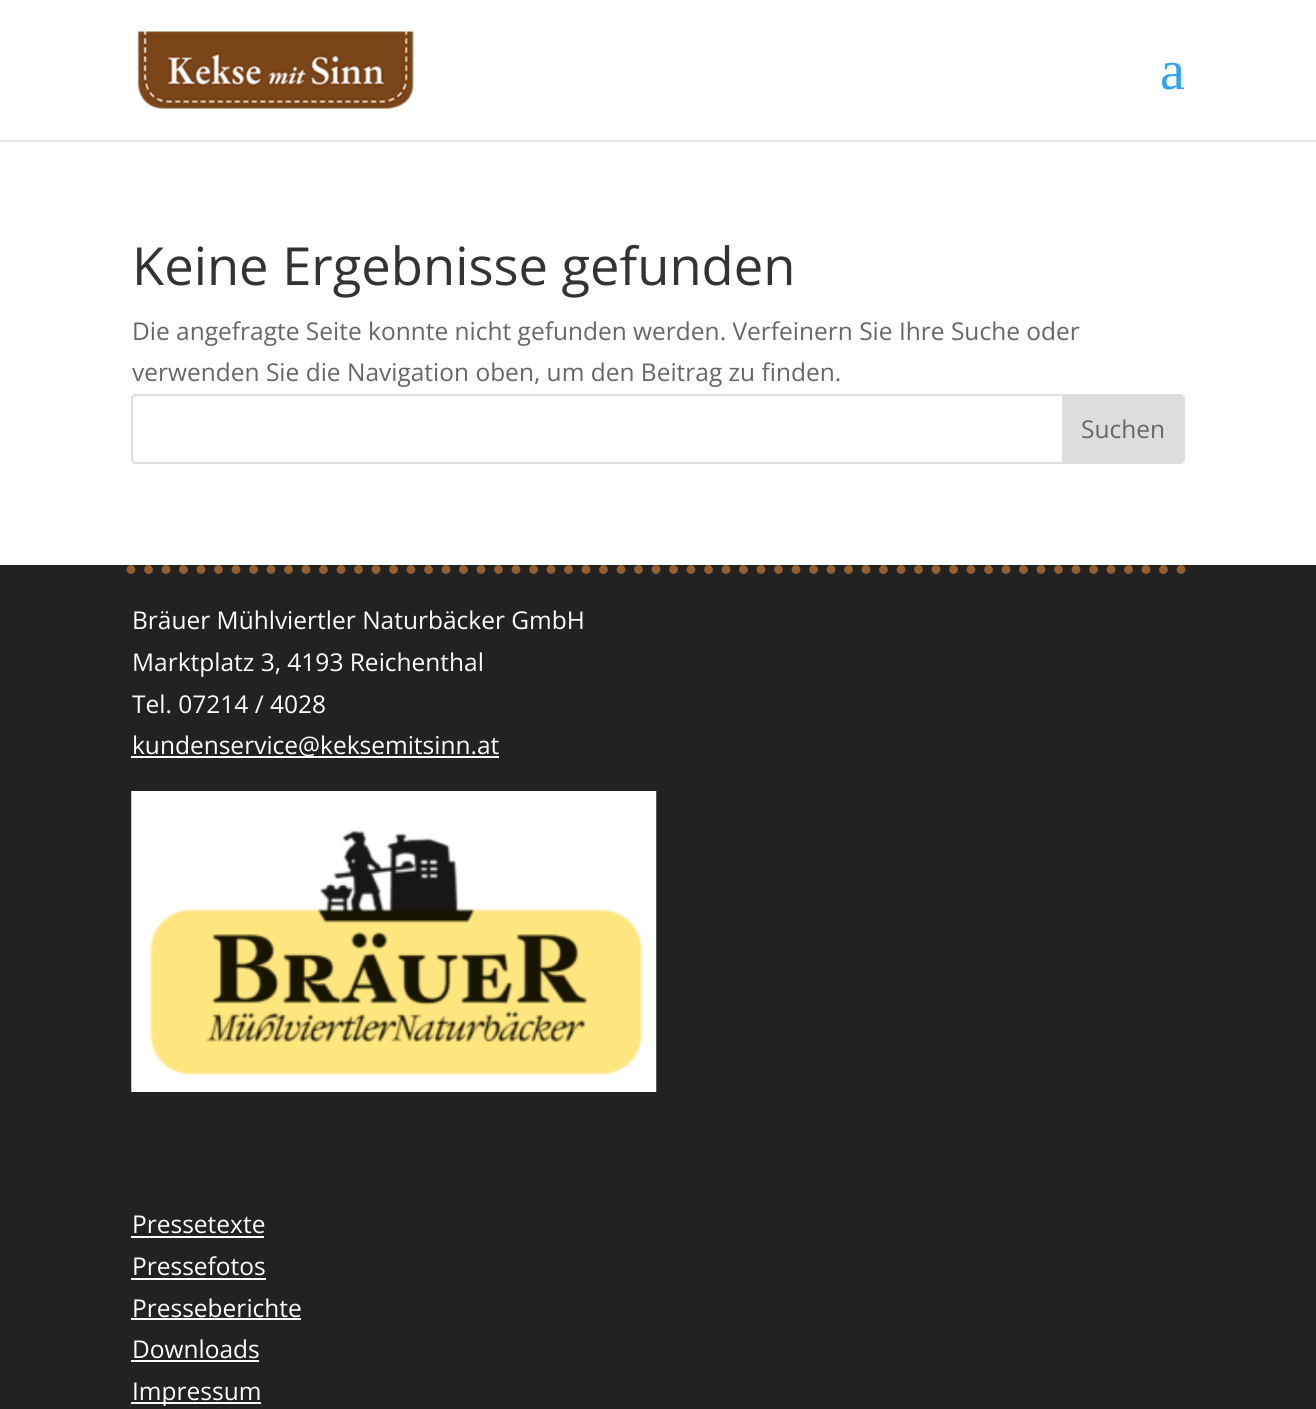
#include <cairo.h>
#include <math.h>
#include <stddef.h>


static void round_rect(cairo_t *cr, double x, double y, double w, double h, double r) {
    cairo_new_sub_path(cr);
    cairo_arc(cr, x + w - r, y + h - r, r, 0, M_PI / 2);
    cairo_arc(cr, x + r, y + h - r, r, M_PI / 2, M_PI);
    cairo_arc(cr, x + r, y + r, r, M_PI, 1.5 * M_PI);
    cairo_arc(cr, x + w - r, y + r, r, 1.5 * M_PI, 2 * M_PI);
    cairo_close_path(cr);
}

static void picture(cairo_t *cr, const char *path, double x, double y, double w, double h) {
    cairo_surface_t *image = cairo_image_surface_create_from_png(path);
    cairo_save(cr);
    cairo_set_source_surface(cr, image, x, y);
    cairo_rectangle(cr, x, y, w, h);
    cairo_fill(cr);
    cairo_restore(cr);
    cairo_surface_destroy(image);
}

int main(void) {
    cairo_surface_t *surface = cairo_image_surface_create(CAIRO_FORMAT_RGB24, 1316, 1409);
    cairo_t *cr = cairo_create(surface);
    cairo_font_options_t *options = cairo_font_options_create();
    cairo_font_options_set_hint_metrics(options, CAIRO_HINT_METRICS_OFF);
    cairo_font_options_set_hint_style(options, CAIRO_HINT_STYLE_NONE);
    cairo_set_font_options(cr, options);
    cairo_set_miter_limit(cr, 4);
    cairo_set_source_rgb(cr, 1, 1, 1);
    cairo_paint(cr);
    cairo_set_source_rgb(cr, 0.902, 0.902, 0.902);
    cairo_rectangle(cr, 0, 140, 1316, 2);
    cairo_fill(cr);
    picture(cr, "img1.png", 137, 31, 277, 78);
    cairo_select_font_face(cr, "Liberation Serif", CAIRO_FONT_SLANT_NORMAL, CAIRO_FONT_WEIGHT_NORMAL);
    cairo_set_font_size(cr, 56);
    cairo_set_source_rgb(cr, 0.18, 0.639, 0.949);
    cairo_move_to(cr, 1160, 89);
    cairo_show_text(cr, "a");
    cairo_select_font_face(cr, "Open Sans", CAIRO_FONT_SLANT_NORMAL, CAIRO_FONT_WEIGHT_NORMAL);
    cairo_set_font_size(cr, 52.5);
    cairo_set_source_rgb(cr, 0.2, 0.2, 0.2);
    cairo_move_to(cr, 132, 285);
    cairo_show_text(cr, "Keine Ergebnisse gefunden");
    cairo_set_font_size(cr, 24.5);
    cairo_set_source_rgb(cr, 0.4, 0.4, 0.4);
    cairo_move_to(cr, 132, 340);
    cairo_show_text(cr, "Die angefragte Seite konnte nicht gefunden werden. Verfeinern Sie Ihre Suche oder");
    cairo_move_to(cr, 132, 381);
    cairo_show_text(cr, "verwenden Sie die Navigation oben, um den Beitrag zu finden.");
    round_rect(cr, 132, 395, 1052, 68, 4);
    cairo_set_source_rgb(cr, 0.867, 0.867, 0.867);
    cairo_stroke(cr);
    cairo_new_path(cr);
    cairo_move_to(cr, 1063, 395);
    cairo_line_to(cr, 1180, 395);
    cairo_curve_to(cr, 1182, 395, 1184, 397, 1184, 399);
    cairo_line_to(cr, 1184, 459);
    cairo_curve_to(cr, 1184, 461, 1182, 463, 1180, 463);
    cairo_line_to(cr, 1063, 463);
    cairo_close_path(cr);
    cairo_fill_preserve(cr);
    cairo_stroke(cr);
    cairo_set_source_rgb(cr, 0.4, 0.4, 0.4);
    cairo_move_to(cr, 1081, 438);
    cairo_show_text(cr, "Suchen");
    cairo_set_source_rgb(cr, 0.133, 0.133, 0.133);
    cairo_rectangle(cr, 0, 565, 1316, 844);
    cairo_fill(cr);
    cairo_new_path(cr);
    cairo_move_to(cr, 131, 569.5);
    cairo_line_to(cr, 1185, 569.5);
    cairo_set_source_rgb(cr, 0.576, 0.38, 0.192);
    cairo_set_line_width(cr, 8.8);
    cairo_set_line_cap(cr, CAIRO_LINE_CAP_ROUND);
    cairo_set_dash(cr, (double[]){0, 17.5}, 2, 0);
    cairo_stroke(cr);
    cairo_set_source_rgb(cr, 1, 1, 1);
    cairo_move_to(cr, 132, 629);
    cairo_show_text(cr, "Bräuer Mühlviertler Naturbäcker GmbH");
    cairo_move_to(cr, 132, 671);
    cairo_show_text(cr, "Marktplatz 3, 4193 Reichenthal");
    cairo_move_to(cr, 132, 713);
    cairo_show_text(cr, "Tel. 07214 / 4028");
    cairo_rectangle(cr, 131, 756, 368, 2);
    cairo_fill(cr);
    cairo_move_to(cr, 132, 754);
    cairo_show_text(cr, "kundenservice@keksemitsinn.at");
    picture(cr, "img2.png", 131, 791, 526, 301);
    cairo_move_to(cr, 132, 1233);
    cairo_show_text(cr, "Pressetexte");
    cairo_rectangle(cr, 131, 1236, 133, 2);
    cairo_fill(cr);
    cairo_move_to(cr, 132, 1275);
    cairo_show_text(cr, "Pressefotos");
    cairo_rectangle(cr, 131, 1278, 135, 2);
    cairo_fill(cr);
    cairo_move_to(cr, 132, 1317);
    cairo_show_text(cr, "Presseberichte");
    cairo_rectangle(cr, 131, 1318, 170, 2);
    cairo_fill(cr);
    cairo_move_to(cr, 132, 1358);
    cairo_show_text(cr, "Downloads");
    cairo_rectangle(cr, 131, 1360, 128, 2);
    cairo_fill(cr);
    cairo_rectangle(cr, 131, 1402, 130, 2);
    cairo_fill(cr);
    cairo_move_to(cr, 132, 1400);
    cairo_show_text(cr, "Impressum");
    cairo_surface_write_to_png(surface, "page.png");
    cairo_font_options_destroy(options);
    cairo_destroy(cr);
    cairo_surface_destroy(surface);
    return 0;
}
